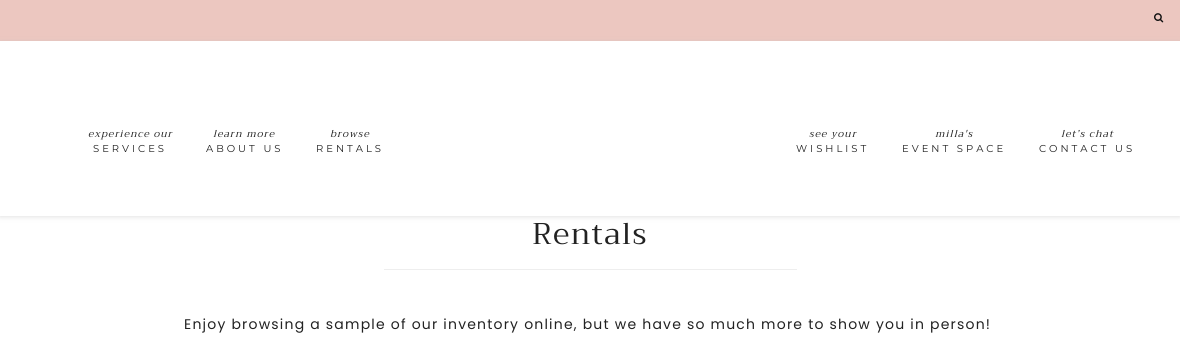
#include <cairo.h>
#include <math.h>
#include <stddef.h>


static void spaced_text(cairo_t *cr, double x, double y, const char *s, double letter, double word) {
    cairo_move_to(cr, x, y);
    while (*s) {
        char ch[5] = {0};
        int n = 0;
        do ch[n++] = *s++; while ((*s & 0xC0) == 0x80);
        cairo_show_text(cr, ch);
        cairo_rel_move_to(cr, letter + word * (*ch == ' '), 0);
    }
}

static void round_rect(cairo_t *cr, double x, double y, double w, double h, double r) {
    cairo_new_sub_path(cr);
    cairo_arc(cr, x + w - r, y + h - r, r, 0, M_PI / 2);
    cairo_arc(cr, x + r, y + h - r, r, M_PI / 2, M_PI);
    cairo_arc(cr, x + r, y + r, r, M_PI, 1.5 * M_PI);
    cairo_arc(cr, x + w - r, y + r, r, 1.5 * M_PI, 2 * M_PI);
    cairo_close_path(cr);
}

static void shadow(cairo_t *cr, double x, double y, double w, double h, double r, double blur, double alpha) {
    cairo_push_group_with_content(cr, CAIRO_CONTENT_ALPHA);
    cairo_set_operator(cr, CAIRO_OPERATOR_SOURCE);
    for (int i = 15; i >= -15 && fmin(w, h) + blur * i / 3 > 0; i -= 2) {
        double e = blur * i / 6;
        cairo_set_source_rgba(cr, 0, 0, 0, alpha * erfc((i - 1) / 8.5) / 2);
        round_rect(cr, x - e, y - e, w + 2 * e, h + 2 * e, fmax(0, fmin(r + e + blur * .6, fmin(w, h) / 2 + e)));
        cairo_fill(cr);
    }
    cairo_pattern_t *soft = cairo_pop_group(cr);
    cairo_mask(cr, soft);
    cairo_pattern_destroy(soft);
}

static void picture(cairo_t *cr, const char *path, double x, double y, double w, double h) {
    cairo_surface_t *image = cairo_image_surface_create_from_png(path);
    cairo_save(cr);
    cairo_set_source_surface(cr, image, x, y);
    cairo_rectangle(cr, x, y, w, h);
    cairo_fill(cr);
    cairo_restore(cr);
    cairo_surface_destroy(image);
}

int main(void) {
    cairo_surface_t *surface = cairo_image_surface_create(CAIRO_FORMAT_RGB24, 1180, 354);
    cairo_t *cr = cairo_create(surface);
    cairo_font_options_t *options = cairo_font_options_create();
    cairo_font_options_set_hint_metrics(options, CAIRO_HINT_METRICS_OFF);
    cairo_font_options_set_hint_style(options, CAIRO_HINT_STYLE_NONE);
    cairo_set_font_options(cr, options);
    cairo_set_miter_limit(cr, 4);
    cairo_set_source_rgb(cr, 1, 1, 1);
    cairo_paint(cr);
    cairo_set_source_rgb(cr, 0.925, 0.78, 0.753);
    cairo_rectangle(cr, 0, 0, 1180, 41);
    cairo_fill(cr);
    picture(cr, "img1.png", 1154, 13, 10, 10);
    cairo_save(cr);
    cairo_set_fill_rule(cr, CAIRO_FILL_RULE_EVEN_ODD);
    cairo_new_path(cr);
    cairo_move_to(cr, 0, 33);
    cairo_line_to(cr, 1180, 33);
    cairo_line_to(cr, 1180, 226);
    cairo_line_to(cr, 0, 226);
    cairo_close_path(cr);
    cairo_move_to(cr, 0, 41);
    cairo_line_to(cr, 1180, 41);
    cairo_line_to(cr, 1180, 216);
    cairo_line_to(cr, 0, 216);
    cairo_close_path(cr);
    cairo_clip(cr);
    cairo_set_source_rgb(cr, 0.745, 0.745, 0.745);
    shadow(cr, 0, 42, 1180, 175, 0, 2.5, 0.46);
    cairo_restore(cr);
    cairo_select_font_face(cr, "Trirong", CAIRO_FONT_SLANT_ITALIC, CAIRO_FONT_WEIGHT_NORMAL);
    cairo_set_font_size(cr, 10);
    cairo_set_source_rgb(cr, 0.133, 0.133, 0.133);
    spaced_text(cr, 88, 137, "experience our", 1, 0);
    cairo_select_font_face(cr, "Montserrat", CAIRO_FONT_SLANT_NORMAL, CAIRO_FONT_WEIGHT_NORMAL);
    spaced_text(cr, 93, 152, "SERVICES", 3, 0);
    cairo_select_font_face(cr, "Trirong", CAIRO_FONT_SLANT_ITALIC, CAIRO_FONT_WEIGHT_NORMAL);
    spaced_text(cr, 213, 137, "learn more", 1, 0);
    cairo_select_font_face(cr, "Montserrat", CAIRO_FONT_SLANT_NORMAL, CAIRO_FONT_WEIGHT_NORMAL);
    spaced_text(cr, 206, 152, "ABOUT US", 3, 0);
    cairo_select_font_face(cr, "Trirong", CAIRO_FONT_SLANT_ITALIC, CAIRO_FONT_WEIGHT_NORMAL);
    spaced_text(cr, 330, 137, "browse", 1, 0);
    cairo_select_font_face(cr, "Montserrat", CAIRO_FONT_SLANT_NORMAL, CAIRO_FONT_WEIGHT_NORMAL);
    spaced_text(cr, 316, 152, "RENTALS", 3, 0);
    cairo_select_font_face(cr, "Trirong", CAIRO_FONT_SLANT_ITALIC, CAIRO_FONT_WEIGHT_NORMAL);
    spaced_text(cr, 809, 137, "see your", 1, 0);
    cairo_select_font_face(cr, "Montserrat", CAIRO_FONT_SLANT_NORMAL, CAIRO_FONT_WEIGHT_NORMAL);
    spaced_text(cr, 796, 152, "WISHLIST", 3, 0);
    cairo_select_font_face(cr, "Trirong", CAIRO_FONT_SLANT_ITALIC, CAIRO_FONT_WEIGHT_NORMAL);
    spaced_text(cr, 935, 137, "milla's", 1, 0);
    cairo_select_font_face(cr, "Montserrat", CAIRO_FONT_SLANT_NORMAL, CAIRO_FONT_WEIGHT_NORMAL);
    spaced_text(cr, 902, 152, "EVENT SPACE", 3, 0);
    cairo_select_font_face(cr, "Trirong", CAIRO_FONT_SLANT_ITALIC, CAIRO_FONT_WEIGHT_NORMAL);
    spaced_text(cr, 1061, 137, "let’s chat", 1, 0);
    cairo_select_font_face(cr, "Montserrat", CAIRO_FONT_SLANT_NORMAL, CAIRO_FONT_WEIGHT_NORMAL);
    spaced_text(cr, 1039, 152, "CONTACT US", 3, 0);
    cairo_select_font_face(cr, "Trirong", CAIRO_FONT_SLANT_NORMAL, CAIRO_FONT_WEIGHT_NORMAL);
    cairo_set_font_size(cr, 30);
    spaced_text(cr, 532, 244, "Rentals", 1.25, 0);
    cairo_set_source_rgb(cr, 0.933, 0.933, 0.933);
    cairo_rectangle(cr, 384, 269, 413, 1);
    cairo_fill(cr);
    cairo_select_font_face(cr, "Poppins", CAIRO_FONT_SLANT_NORMAL, CAIRO_FONT_WEIGHT_NORMAL);
    cairo_set_font_size(cr, 14);
    cairo_set_source_rgb(cr, 0.133, 0.133, 0.133);
    spaced_text(cr, 184, 329, "Enjoy browsing a sample of our inventory online, but we have so much more to show you in person!", 1.2, 0);
    cairo_surface_write_to_png(surface, "page.png");
    cairo_font_options_destroy(options);
    cairo_destroy(cr);
    cairo_surface_destroy(surface);
    return 0;
}
